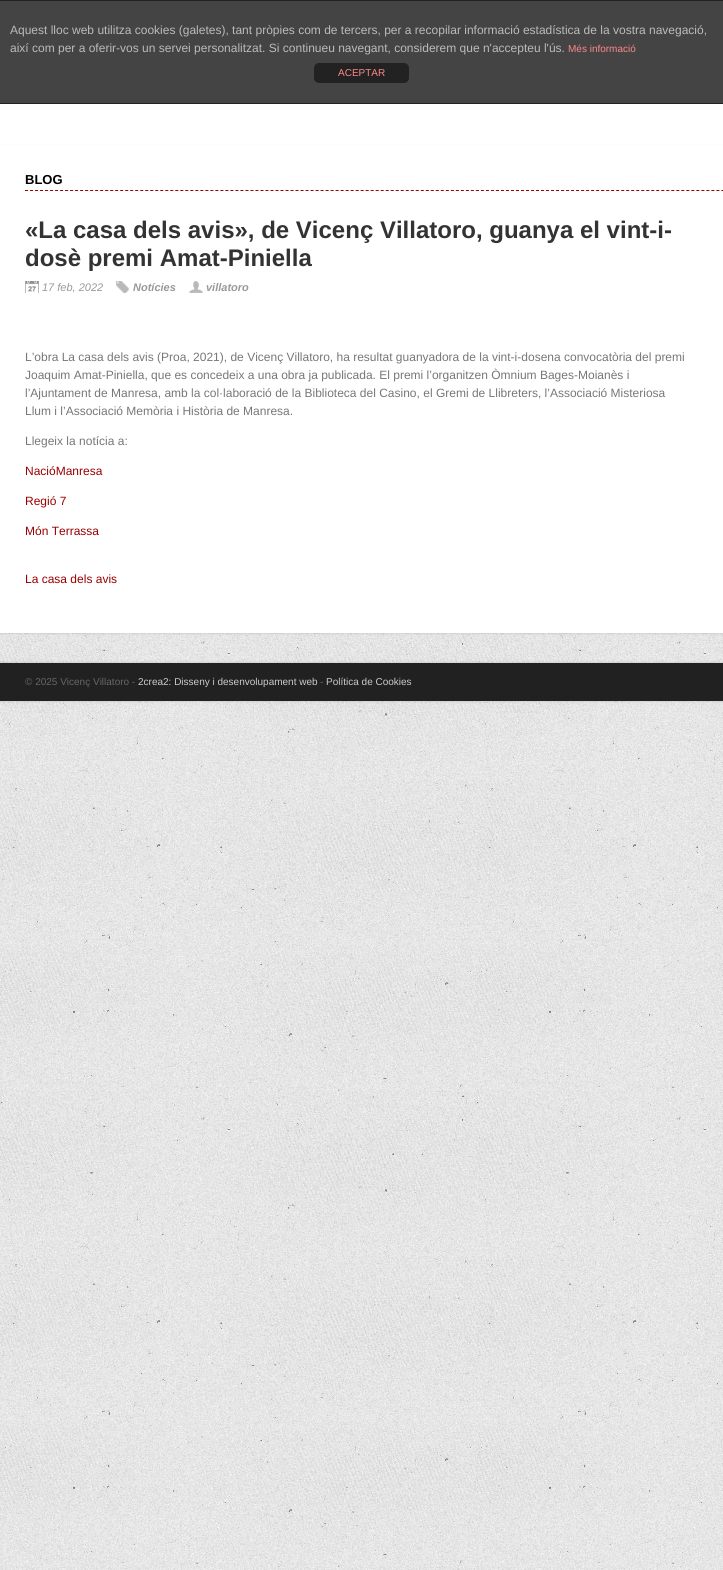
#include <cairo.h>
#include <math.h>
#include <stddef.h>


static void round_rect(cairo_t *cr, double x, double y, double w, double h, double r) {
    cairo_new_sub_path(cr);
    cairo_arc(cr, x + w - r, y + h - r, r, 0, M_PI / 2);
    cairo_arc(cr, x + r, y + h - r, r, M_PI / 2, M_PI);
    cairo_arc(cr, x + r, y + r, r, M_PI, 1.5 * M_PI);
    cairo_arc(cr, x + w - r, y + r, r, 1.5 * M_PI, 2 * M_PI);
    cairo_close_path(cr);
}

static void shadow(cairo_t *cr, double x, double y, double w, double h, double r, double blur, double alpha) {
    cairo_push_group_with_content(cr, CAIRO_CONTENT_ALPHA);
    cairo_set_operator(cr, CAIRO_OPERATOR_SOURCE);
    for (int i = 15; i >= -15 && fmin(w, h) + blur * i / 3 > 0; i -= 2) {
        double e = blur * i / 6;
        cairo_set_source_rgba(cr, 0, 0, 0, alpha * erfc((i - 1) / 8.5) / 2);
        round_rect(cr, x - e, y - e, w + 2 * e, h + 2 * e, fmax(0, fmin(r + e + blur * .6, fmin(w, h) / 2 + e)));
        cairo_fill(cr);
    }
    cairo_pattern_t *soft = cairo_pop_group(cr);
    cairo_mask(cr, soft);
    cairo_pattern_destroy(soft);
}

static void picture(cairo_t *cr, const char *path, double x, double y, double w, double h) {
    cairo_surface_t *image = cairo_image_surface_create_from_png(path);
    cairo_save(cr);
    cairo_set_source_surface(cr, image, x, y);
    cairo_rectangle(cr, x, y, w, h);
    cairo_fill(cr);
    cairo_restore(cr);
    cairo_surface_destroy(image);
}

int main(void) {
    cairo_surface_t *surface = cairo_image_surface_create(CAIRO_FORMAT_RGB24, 723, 1570);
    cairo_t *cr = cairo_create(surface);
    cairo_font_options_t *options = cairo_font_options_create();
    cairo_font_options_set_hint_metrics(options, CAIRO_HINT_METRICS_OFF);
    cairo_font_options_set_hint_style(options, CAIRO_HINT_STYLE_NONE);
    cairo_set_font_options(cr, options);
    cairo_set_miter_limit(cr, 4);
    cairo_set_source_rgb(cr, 1, 1, 1);
    cairo_paint(cr);
    picture(cr, "img1.png", 0, 633, 723, 937);
    cairo_set_source_rgb(cr, 0.267, 0.267, 0.267);
    cairo_rectangle(cr, 0, 1, 723, 102);
    cairo_fill(cr);
    cairo_set_source_rgb(cr, 0.133, 0.133, 0.133);
    cairo_rectangle(cr, 0, 0, 723, 1);
    cairo_fill(cr);
    cairo_rectangle(cr, 0, 103, 723, 1);
    cairo_fill(cr);
    cairo_select_font_face(cr, "Liberation Sans", CAIRO_FONT_SLANT_NORMAL, CAIRO_FONT_WEIGHT_NORMAL);
    cairo_set_font_size(cr, 12);
    cairo_set_source_rgb(cr, 0.733, 0.733, 0.733);
    cairo_move_to(cr, 10, 34);
    cairo_show_text(cr, "Aquest lloc web utilitza cookies (galetes), tant pròpies com de tercers, per a recopilar informació estadística de la vostra navegació,");
    cairo_move_to(cr, 10, 52);
    cairo_show_text(cr, "així com per a oferir-vos un servei personalitzat. Si continueu navegant, considerem que n'accepteu l'ús.");
    cairo_set_font_size(cr, 10);
    cairo_set_source_rgb(cr, 1, 0.533, 0.533);
    cairo_move_to(cr, 568, 52);
    cairo_show_text(cr, "Més informació");
    cairo_set_source_rgb(cr, 0.133, 0.133, 0.133);
    round_rect(cr, 314, 63, 95, 20, 5);
    cairo_fill(cr);
    cairo_set_source_rgb(cr, 1, 0.533, 0.533);
    cairo_move_to(cr, 338, 76);
    cairo_show_text(cr, "ACEPTAR");
    cairo_set_source_rgb(cr, 0.502, 0.502, 0.502);
    shadow(cr, 0, 147, 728, 486, 0, 1.5, 0.4);
    cairo_set_source_rgb(cr, 1, 1, 1);
    cairo_rectangle(cr, 0, 145, 723, 488);
    cairo_fill(cr);
    cairo_new_path(cr);
    cairo_move_to(cr, 25, 190.5);
    cairo_line_to(cr, 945, 190.5);
    cairo_set_source_rgb(cr, 0.6, 0, 0);
    cairo_set_line_width(cr, 1);
    cairo_set_dash(cr, (double[]){3, 2.01}, 2, 0);
    cairo_stroke(cr);
    cairo_select_font_face(cr, "Liberation Sans", CAIRO_FONT_SLANT_NORMAL, CAIRO_FONT_WEIGHT_BOLD);
    cairo_set_font_size(cr, 13);
    cairo_set_source_rgb(cr, 0, 0, 0);
    cairo_move_to(cr, 25, 184);
    cairo_show_text(cr, "BLOG");
    cairo_set_font_size(cr, 24);
    cairo_set_source_rgb(cr, 0.2, 0.2, 0.2);
    cairo_move_to(cr, 25, 238);
    cairo_show_text(cr, "«La casa dels avis», de Vicenç Villatoro, guanya el vint-i-");
    cairo_move_to(cr, 25, 266);
    cairo_show_text(cr, "dosè premi Amat-Piniella");
    picture(cr, "img2.png", 25, 281, 14, 12);
    cairo_select_font_face(cr, "Liberation Sans", CAIRO_FONT_SLANT_ITALIC, CAIRO_FONT_WEIGHT_NORMAL);
    cairo_set_font_size(cr, 11);
    cairo_set_source_rgb(cr, 0.6, 0.6, 0.6);
    cairo_move_to(cr, 42, 291);
    cairo_show_text(cr, "17 feb, 2022");
    picture(cr, "img3.png", 116, 281, 13, 12);
    cairo_select_font_face(cr, "Liberation Sans", CAIRO_FONT_SLANT_ITALIC, CAIRO_FONT_WEIGHT_BOLD);
    cairo_move_to(cr, 133, 291);
    cairo_show_text(cr, "Notícies");
    picture(cr, "img4.png", 189, 281, 14, 12);
    cairo_move_to(cr, 206, 291);
    cairo_show_text(cr, "villatoro");
    cairo_select_font_face(cr, "Liberation Sans", CAIRO_FONT_SLANT_NORMAL, CAIRO_FONT_WEIGHT_NORMAL);
    cairo_set_font_size(cr, 12);
    cairo_set_source_rgb(cr, 0.467, 0.467, 0.467);
    cairo_move_to(cr, 25, 361);
    cairo_show_text(cr, "L’obra La casa dels avis (Proa, 2021), de Vicenç Villatoro, ha resultat guanyadora de la vint-i-dosena convocatòria del premi");
    cairo_move_to(cr, 25, 379);
    cairo_show_text(cr, "Joaquim Amat-Piniella, que es concedeix a una obra ja publicada. El premi l’organitzen Òmnium Bages-Moianès i");
    cairo_move_to(cr, 25, 397);
    cairo_show_text(cr, "l’Ajuntament de Manresa, amb la col·laboració de la Biblioteca del Casino, el Gremi de Llibreters, l’Associació Misteriosa");
    cairo_move_to(cr, 25, 415);
    cairo_show_text(cr, "Llum i l’Associació Memòria i Història de Manresa.");
    cairo_move_to(cr, 25, 445);
    cairo_show_text(cr, "Llegeix la notícia a:");
    cairo_set_source_rgb(cr, 0.6, 0, 0);
    cairo_move_to(cr, 25, 475);
    cairo_show_text(cr, "NacióManresa");
    cairo_move_to(cr, 25, 505);
    cairo_show_text(cr, "Regió 7");
    cairo_move_to(cr, 25, 535);
    cairo_show_text(cr, "Món Terrassa");
    cairo_move_to(cr, 25, 583);
    cairo_show_text(cr, "La casa dels avis");
    cairo_set_source_rgb(cr, 0.502, 0.502, 0.502);
    shadow(cr, 0, 663, 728, 38, 0, 1.5, 0.4);
    cairo_set_source_rgb(cr, 0.129, 0.129, 0.129);
    cairo_rectangle(cr, 0, 663, 723, 38);
    cairo_fill(cr);
    cairo_set_font_size(cr, 10);
    cairo_set_source_rgb(cr, 0.4, 0.4, 0.4);
    cairo_move_to(cr, 25, 685);
    cairo_show_text(cr, "© 2025 Vicenç Villatoro -");
    cairo_set_source_rgb(cr, 0.8, 0.8, 0.8);
    cairo_move_to(cr, 138, 685);
    cairo_show_text(cr, "2crea2: Disseny i desenvolupament web");
    cairo_set_source_rgb(cr, 0.4, 0.4, 0.4);
    cairo_move_to(cr, 320, 685);
    cairo_show_text(cr, "-");
    cairo_set_source_rgb(cr, 0.8, 0.8, 0.8);
    cairo_move_to(cr, 326, 685);
    cairo_show_text(cr, "Política de Cookies");
    cairo_surface_write_to_png(surface, "page.png");
    cairo_font_options_destroy(options);
    cairo_destroy(cr);
    cairo_surface_destroy(surface);
    return 0;
}
